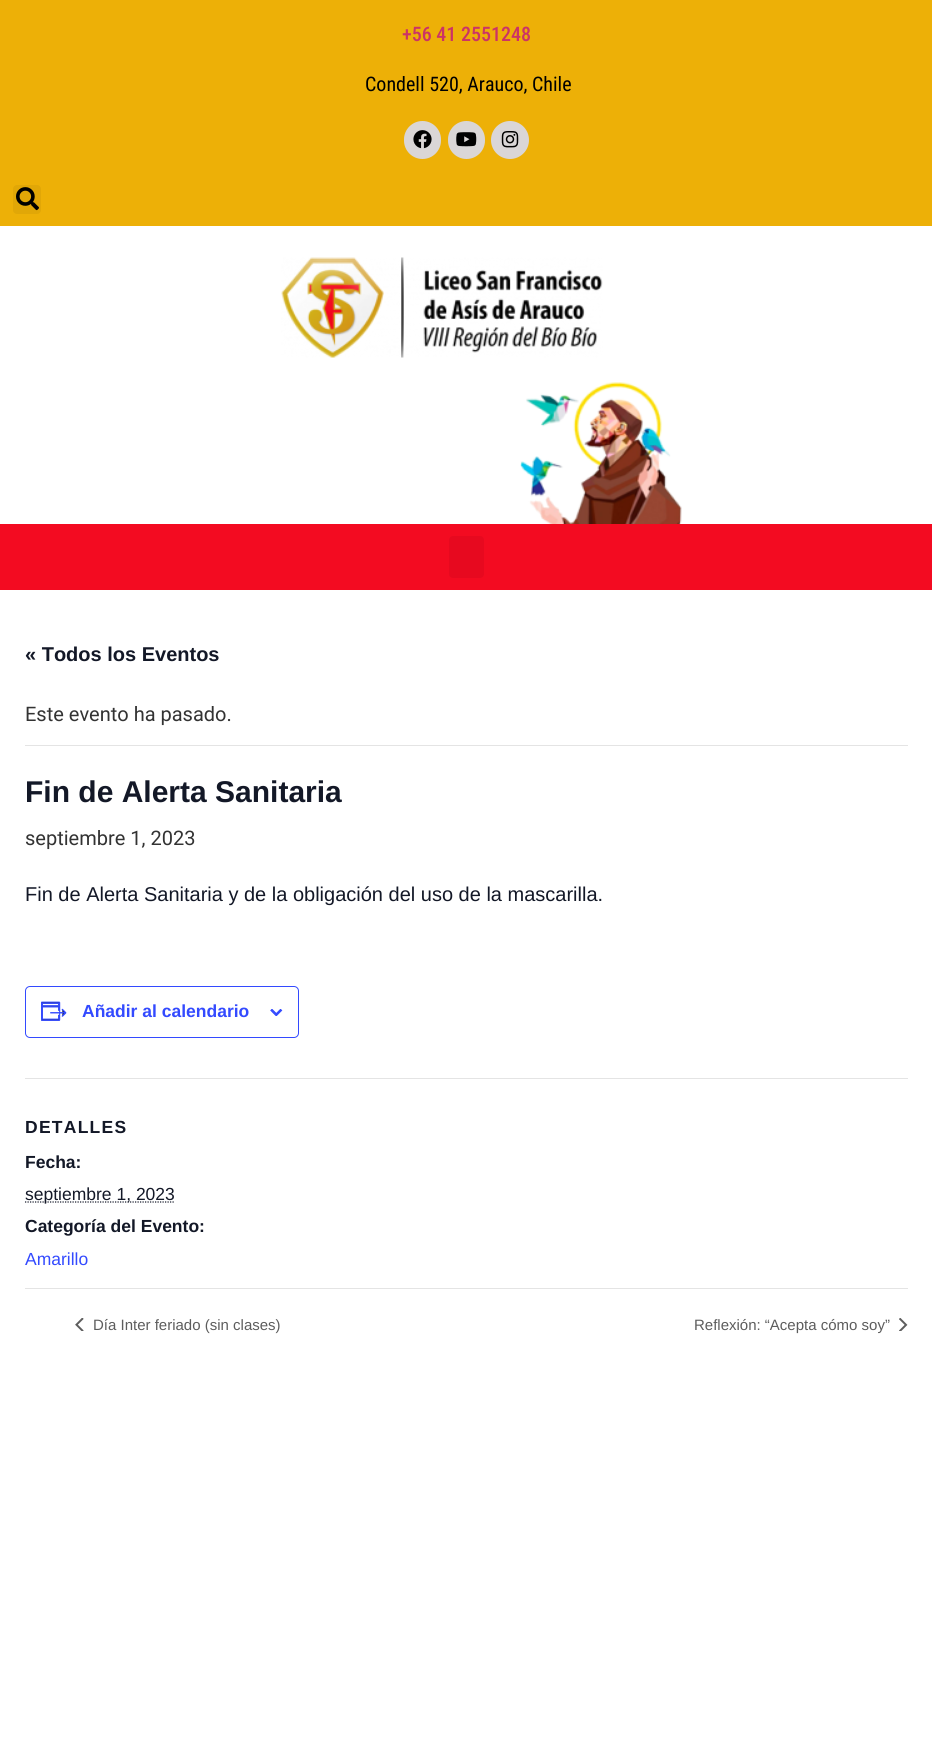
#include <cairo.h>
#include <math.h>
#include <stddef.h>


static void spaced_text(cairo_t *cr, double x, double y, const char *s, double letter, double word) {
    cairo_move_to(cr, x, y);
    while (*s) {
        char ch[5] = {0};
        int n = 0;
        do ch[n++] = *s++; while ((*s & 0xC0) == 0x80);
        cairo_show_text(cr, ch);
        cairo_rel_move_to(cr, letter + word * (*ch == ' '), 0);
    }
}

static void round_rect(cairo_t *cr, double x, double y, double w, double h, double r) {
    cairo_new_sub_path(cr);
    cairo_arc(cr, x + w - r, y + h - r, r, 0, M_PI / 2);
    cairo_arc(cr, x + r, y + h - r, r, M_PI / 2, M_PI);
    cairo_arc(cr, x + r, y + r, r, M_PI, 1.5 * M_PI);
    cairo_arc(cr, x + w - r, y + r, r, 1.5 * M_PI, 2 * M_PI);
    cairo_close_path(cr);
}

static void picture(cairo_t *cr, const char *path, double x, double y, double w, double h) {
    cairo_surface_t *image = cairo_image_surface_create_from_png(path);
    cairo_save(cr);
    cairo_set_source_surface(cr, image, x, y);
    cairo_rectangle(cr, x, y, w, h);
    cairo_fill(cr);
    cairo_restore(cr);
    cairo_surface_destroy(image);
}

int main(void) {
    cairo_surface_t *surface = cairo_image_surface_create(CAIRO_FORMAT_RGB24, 932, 1759);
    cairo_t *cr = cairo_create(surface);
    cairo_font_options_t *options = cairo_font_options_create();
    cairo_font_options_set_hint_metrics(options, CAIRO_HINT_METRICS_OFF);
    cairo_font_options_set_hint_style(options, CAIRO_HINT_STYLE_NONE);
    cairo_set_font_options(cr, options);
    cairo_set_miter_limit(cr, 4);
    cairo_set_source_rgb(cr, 1, 1, 1);
    cairo_paint(cr);
    cairo_set_source_rgb(cr, 0.929, 0.69, 0.031);
    cairo_rectangle(cr, 0, 0, 932, 226);
    cairo_fill(cr);
    cairo_select_font_face(cr, "Roboto Condensed Medium", CAIRO_FONT_SLANT_NORMAL, CAIRO_FONT_WEIGHT_NORMAL);
    cairo_set_font_size(cr, 20);
    cairo_set_source_rgb(cr, 0.8, 0.2, 0.4);
    cairo_move_to(cr, 402, 41);
    cairo_show_text(cr, "+56 41 2551248");
    cairo_select_font_face(cr, "Roboto Condensed", CAIRO_FONT_SLANT_NORMAL, CAIRO_FONT_WEIGHT_NORMAL);
    cairo_set_source_rgb(cr, 0, 0, 0);
    cairo_move_to(cr, 365, 91);
    cairo_show_text(cr, "Condell 520, Arauco, Chile");
    cairo_set_source_rgb(cr, 0.855, 0.839, 0.839);
    round_rect(cr, 404, 121, 37, 38, 18.5);
    cairo_fill(cr);
    picture(cr, "img1.png", 413, 130, 19, 19);
    round_rect(cr, 448, 121, 37, 38, 18.5);
    cairo_fill(cr);
    picture(cr, "img2.png", 456, 132, 21, 15);
    cairo_arc(cr, 510, 140, 19, 0, 2 * M_PI);
    cairo_fill(cr);
    picture(cr, "img3.png", 501, 131, 18, 17);
    cairo_set_source_rgb(cr, 0.882, 0.655, 0.031);
    round_rect(cr, 13, 185, 28, 29, 4);
    cairo_fill(cr);
    picture(cr, "img4.png", 16, 187, 23, 24);
    picture(cr, "img5.png", 281, 257, 322, 101);
    picture(cr, "img6.png", 520, 382, 162, 142);
    cairo_set_source_rgb(cr, 0.953, 0.043, 0.129);
    cairo_rectangle(cr, 0, 524, 932, 66);
    cairo_fill(cr);
    cairo_set_source_rgb(cr, 0.906, 0.039, 0.122);
    round_rect(cr, 449, 536, 35, 42, 4);
    cairo_fill(cr);
    cairo_select_font_face(cr, "Liberation Sans", CAIRO_FONT_SLANT_NORMAL, CAIRO_FONT_WEIGHT_BOLD);
    cairo_set_source_rgb(cr, 0.078, 0.094, 0.153);
    cairo_move_to(cr, 25, 661);
    cairo_show_text(cr, "« Todos los Eventos");
    cairo_set_source_rgb(cr, 0.894, 0.894, 0.894);
    cairo_rectangle(cr, 25, 745, 883, 1);
    cairo_fill(cr);
    cairo_select_font_face(cr, "Roboto", CAIRO_FONT_SLANT_NORMAL, CAIRO_FONT_WEIGHT_NORMAL);
    cairo_set_source_rgb(cr, 0.2, 0.2, 0.2);
    cairo_move_to(cr, 25, 721);
    cairo_show_text(cr, "Este evento ha pasado.");
    cairo_select_font_face(cr, "Liberation Sans", CAIRO_FONT_SLANT_NORMAL, CAIRO_FONT_WEIGHT_BOLD);
    cairo_set_font_size(cr, 30);
    cairo_set_source_rgb(cr, 0.078, 0.094, 0.153);
    cairo_move_to(cr, 25, 802);
    cairo_show_text(cr, "Fin de Alerta Sanitaria");
    cairo_select_font_face(cr, "Roboto", CAIRO_FONT_SLANT_NORMAL, CAIRO_FONT_WEIGHT_NORMAL);
    cairo_set_font_size(cr, 20);
    cairo_set_source_rgb(cr, 0.2, 0.2, 0.2);
    cairo_move_to(cr, 25, 845);
    cairo_show_text(cr, "septiembre 1, 2023");
    cairo_select_font_face(cr, "Liberation Sans", CAIRO_FONT_SLANT_NORMAL, CAIRO_FONT_WEIGHT_NORMAL);
    cairo_set_source_rgb(cr, 0.078, 0.094, 0.153);
    cairo_move_to(cr, 25, 901);
    cairo_show_text(cr, "Fin de Alerta Sanitaria y de la obligación del uso de la mascarilla.");
    round_rect(cr, 25.5, 986.5, 273, 51, 4.5);
    cairo_set_source_rgb(cr, 0.2, 0.29, 1);
    cairo_set_line_width(cr, 1);
    cairo_stroke(cr);
    picture(cr, "img7.png", 41, 1001, 26, 20);
    cairo_select_font_face(cr, "Liberation Sans", CAIRO_FONT_SLANT_NORMAL, CAIRO_FONT_WEIGHT_BOLD);
    cairo_set_font_size(cr, 17.5);
    cairo_move_to(cr, 82, 1017);
    cairo_show_text(cr, "Añadir al calendario");
    picture(cr, "img8.png", 270, 1009, 13, 7);
    cairo_set_source_rgb(cr, 0.894, 0.894, 0.894);
    cairo_rectangle(cr, 25, 1078, 883, 1);
    cairo_fill(cr);
    cairo_set_source_rgb(cr, 0.078, 0.094, 0.153);
    spaced_text(cr, 25, 1133, "DETALLES", 1.25, 0);
    cairo_move_to(cr, 25, 1168);
    cairo_show_text(cr, "Fecha:");
    cairo_new_path(cr);
    cairo_move_to(cr, 25, 1202);
    cairo_line_to(cr, 175, 1202);
    cairo_set_line_width(cr, 1.2);
    cairo_set_dash(cr, (double[]){1.25, 1.25}, 2, 0);
    cairo_stroke(cr);
    cairo_select_font_face(cr, "Liberation Sans", CAIRO_FONT_SLANT_NORMAL, CAIRO_FONT_WEIGHT_NORMAL);
    cairo_move_to(cr, 25, 1200);
    cairo_show_text(cr, "septiembre 1, 2023");
    cairo_select_font_face(cr, "Liberation Sans", CAIRO_FONT_SLANT_NORMAL, CAIRO_FONT_WEIGHT_BOLD);
    cairo_move_to(cr, 25, 1232);
    cairo_show_text(cr, "Categoría del Evento:");
    cairo_select_font_face(cr, "Liberation Sans", CAIRO_FONT_SLANT_NORMAL, CAIRO_FONT_WEIGHT_NORMAL);
    cairo_set_source_rgb(cr, 0.2, 0.29, 1);
    cairo_move_to(cr, 25, 1265);
    cairo_show_text(cr, "Amarillo");
    cairo_set_source_rgb(cr, 0.894, 0.894, 0.894);
    cairo_rectangle(cr, 25, 1288, 883, 1);
    cairo_fill(cr);
    picture(cr, "img9.png", 75, 1318, 9, 13);
    cairo_set_font_size(cr, 15);
    cairo_set_source_rgb(cr, 0.365, 0.365, 0.365);
    cairo_move_to(cr, 93, 1330);
    cairo_show_text(cr, "Día Inter feriado (sin clases)");
    cairo_move_to(cr, 694, 1330);
    cairo_show_text(cr, "Reflexión: “Acepta cómo soy”");
    picture(cr, "img10.png", 899, 1318, 9, 13);
    cairo_surface_write_to_png(surface, "page.png");
    cairo_font_options_destroy(options);
    cairo_destroy(cr);
    cairo_surface_destroy(surface);
    return 0;
}
